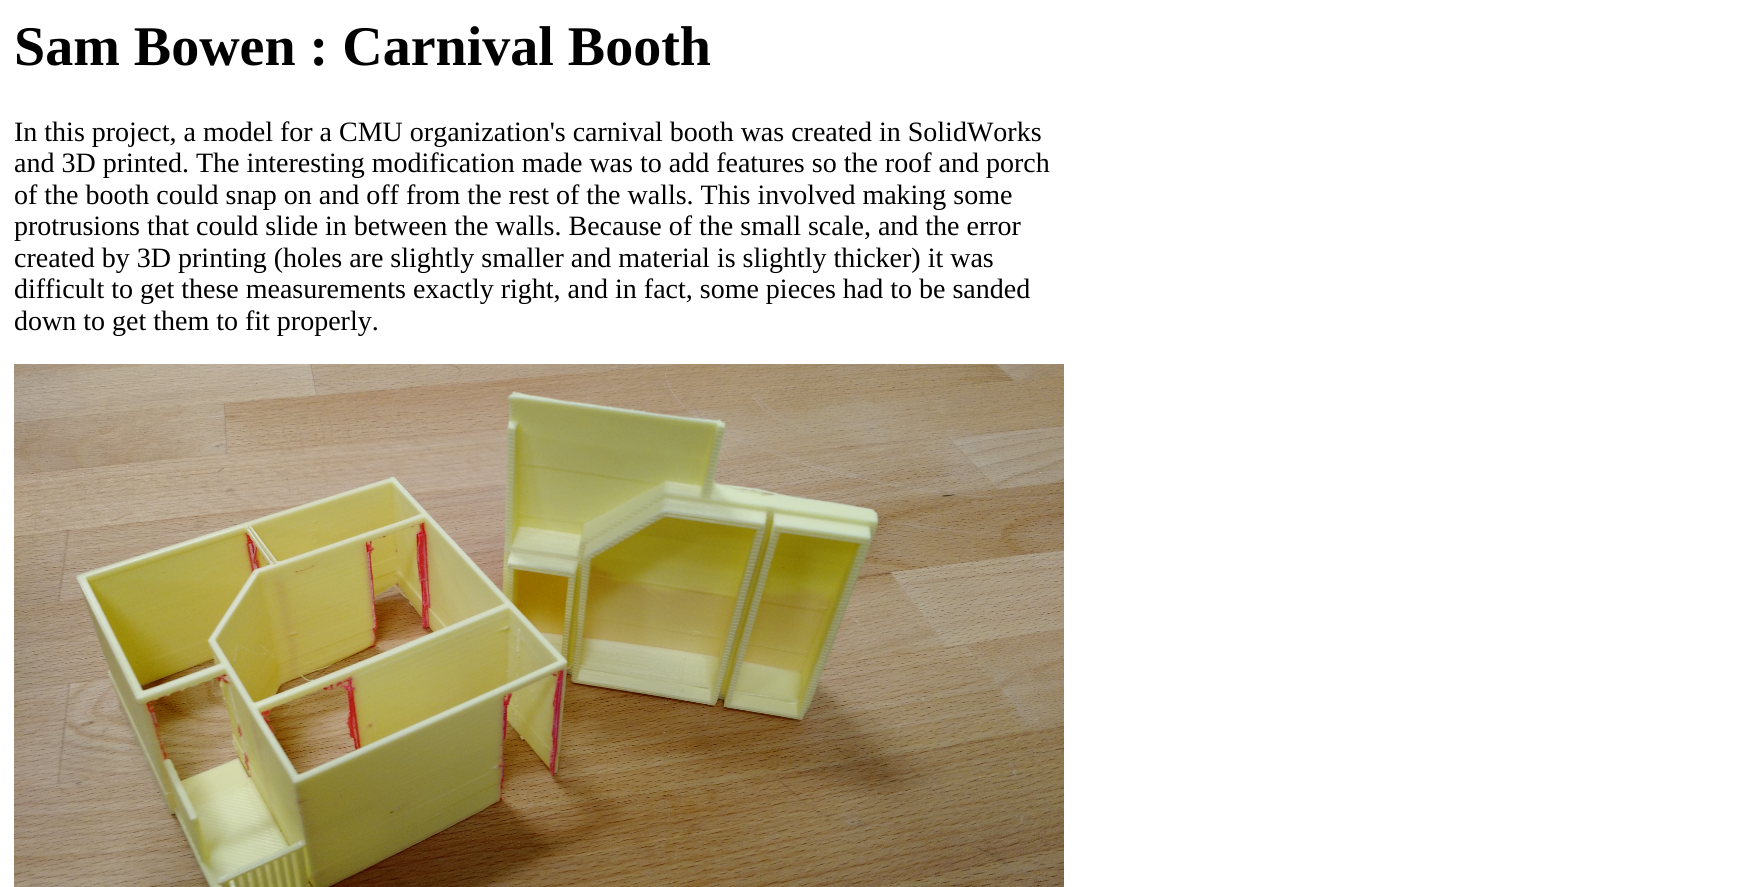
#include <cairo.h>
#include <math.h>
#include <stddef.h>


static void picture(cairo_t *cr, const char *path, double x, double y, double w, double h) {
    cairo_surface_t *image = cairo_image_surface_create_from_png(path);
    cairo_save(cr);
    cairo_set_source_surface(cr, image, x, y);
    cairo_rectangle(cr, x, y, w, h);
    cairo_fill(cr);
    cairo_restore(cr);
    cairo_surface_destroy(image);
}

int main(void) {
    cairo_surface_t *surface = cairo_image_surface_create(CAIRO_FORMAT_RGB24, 1764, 887);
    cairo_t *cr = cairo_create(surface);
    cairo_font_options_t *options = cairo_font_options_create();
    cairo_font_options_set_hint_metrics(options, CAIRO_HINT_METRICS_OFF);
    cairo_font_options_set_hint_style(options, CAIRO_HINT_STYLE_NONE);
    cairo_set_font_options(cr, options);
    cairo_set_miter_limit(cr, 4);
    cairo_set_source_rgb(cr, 1, 1, 1);
    cairo_paint(cr);
    cairo_select_font_face(cr, "Liberation Serif", CAIRO_FONT_SLANT_NORMAL, CAIRO_FONT_WEIGHT_BOLD);
    cairo_set_font_size(cr, 56);
    cairo_set_source_rgb(cr, 0, 0, 0);
    cairo_move_to(cr, 14, 65);
    cairo_show_text(cr, "Sam Bowen : Carnival Booth");
    cairo_select_font_face(cr, "Liberation Serif", CAIRO_FONT_SLANT_NORMAL, CAIRO_FONT_WEIGHT_NORMAL);
    cairo_set_font_size(cr, 28);
    cairo_move_to(cr, 14, 141);
    cairo_show_text(cr, "In this project, a model for a CMU organization's carnival booth was created in SolidWorks");
    cairo_move_to(cr, 14, 172);
    cairo_show_text(cr, "and 3D printed. The interesting modification made was to add features so the roof and porch");
    cairo_move_to(cr, 14, 204);
    cairo_show_text(cr, "of the booth could snap on and off from the rest of the walls. This involved making some");
    cairo_move_to(cr, 14, 235);
    cairo_show_text(cr, "protrusions that could slide in between the walls. Because of the small scale, and the error");
    cairo_move_to(cr, 14, 267);
    cairo_show_text(cr, "created by 3D printing (holes are slightly smaller and material is slightly thicker) it was");
    cairo_move_to(cr, 14, 298);
    cairo_show_text(cr, "difficult to get these measurements exactly right, and in fact, some pieces had to be sanded");
    cairo_move_to(cr, 14, 330);
    cairo_show_text(cr, "down to get them to fit properly.");
    picture(cr, "img1.png", 14, 364, 1050, 523);
    cairo_surface_write_to_png(surface, "page.png");
    cairo_font_options_destroy(options);
    cairo_destroy(cr);
    cairo_surface_destroy(surface);
    return 0;
}
